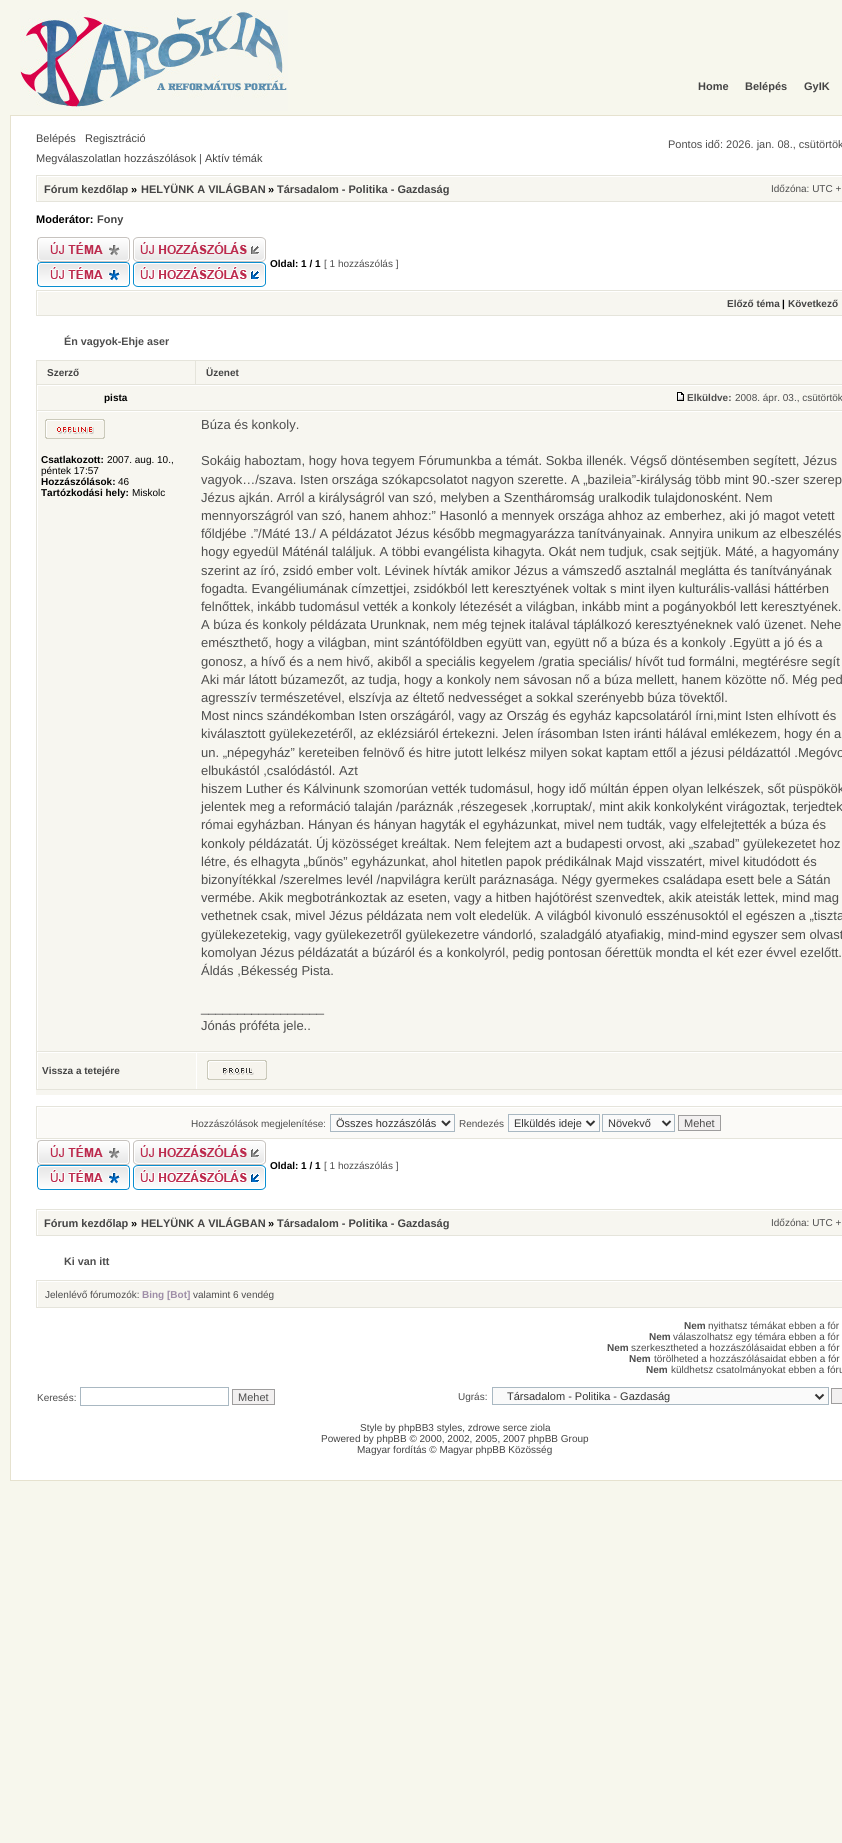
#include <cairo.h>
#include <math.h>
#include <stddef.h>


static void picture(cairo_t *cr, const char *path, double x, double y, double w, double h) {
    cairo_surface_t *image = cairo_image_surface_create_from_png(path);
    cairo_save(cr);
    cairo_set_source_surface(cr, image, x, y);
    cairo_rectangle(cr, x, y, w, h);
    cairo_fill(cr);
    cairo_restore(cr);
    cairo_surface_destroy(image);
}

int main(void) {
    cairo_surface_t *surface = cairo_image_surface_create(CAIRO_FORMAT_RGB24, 842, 1843);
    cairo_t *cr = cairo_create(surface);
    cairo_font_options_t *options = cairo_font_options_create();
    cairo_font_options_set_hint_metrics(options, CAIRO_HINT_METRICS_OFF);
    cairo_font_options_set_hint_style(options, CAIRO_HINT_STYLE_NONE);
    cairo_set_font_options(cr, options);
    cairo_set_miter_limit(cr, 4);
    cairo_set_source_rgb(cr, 0.965, 0.965, 0.929);
    cairo_paint(cr);
    picture(cr, "img1.png", 20, 10, 268, 101);
    cairo_select_font_face(cr, "Liberation Sans", CAIRO_FONT_SLANT_NORMAL, CAIRO_FONT_WEIGHT_BOLD);
    cairo_set_font_size(cr, 11);
    cairo_set_source_rgb(cr, 0.267, 0.267, 0.267);
    cairo_move_to(cr, 698, 90);
    cairo_show_text(cr, "Home");
    cairo_move_to(cr, 745, 90);
    cairo_show_text(cr, "Belépés");
    cairo_move_to(cr, 804, 90);
    cairo_show_text(cr, "GyIK");
    cairo_set_source_rgb(cr, 1, 1, 1);
    cairo_rectangle(cr, 10.5, 115.5, 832, 1365);
    cairo_fill_preserve(cr);
    cairo_set_source_rgb(cr, 0.902, 0.886, 0.812);
    cairo_set_line_width(cr, 1);
    cairo_stroke(cr);
    cairo_select_font_face(cr, "Liberation Sans", CAIRO_FONT_SLANT_NORMAL, CAIRO_FONT_WEIGHT_NORMAL);
    cairo_set_source_rgb(cr, 0.267, 0.267, 0.267);
    cairo_move_to(cr, 36, 142);
    cairo_show_text(cr, "Belépés");
    cairo_move_to(cr, 85, 142);
    cairo_show_text(cr, "Regisztráció");
    cairo_set_source_rgb(cr, 0.302, 0.302, 0.302);
    cairo_move_to(cr, 668, 148);
    cairo_show_text(cr, "Pontos idő: 2026. jan. 08., csütörtök");
    cairo_set_source_rgb(cr, 0.267, 0.267, 0.267);
    cairo_move_to(cr, 36, 162);
    cairo_show_text(cr, "Megválaszolatlan hozzászólások");
    cairo_set_source_rgb(cr, 0.302, 0.302, 0.302);
    cairo_move_to(cr, 199, 162);
    cairo_show_text(cr, "|");
    cairo_set_source_rgb(cr, 0.267, 0.267, 0.267);
    cairo_move_to(cr, 205, 162);
    cairo_show_text(cr, "Aktív témák");
    cairo_set_source_rgb(cr, 0.898, 0.894, 0.859);
    cairo_rectangle(cr, 36, 175, 806, 27);
    cairo_fill(cr);
    cairo_set_source_rgb(cr, 0.965, 0.961, 0.941);
    cairo_rectangle(cr, 38, 177, 804, 24);
    cairo_fill(cr);
    cairo_set_source_rgb(cr, 1, 1, 1);
    cairo_rectangle(cr, 37, 176, 805, 1);
    cairo_fill(cr);
    cairo_rectangle(cr, 37, 176, 1, 25);
    cairo_fill(cr);
    cairo_select_font_face(cr, "Liberation Sans", CAIRO_FONT_SLANT_NORMAL, CAIRO_FONT_WEIGHT_BOLD);
    cairo_set_source_rgb(cr, 0.267, 0.267, 0.267);
    cairo_move_to(cr, 44, 193);
    cairo_show_text(cr, "Fórum kezdőlap");
    cairo_set_source_rgb(cr, 0, 0, 0);
    cairo_move_to(cr, 131, 193);
    cairo_show_text(cr, "»");
    cairo_set_source_rgb(cr, 0.267, 0.267, 0.267);
    cairo_move_to(cr, 141, 193);
    cairo_show_text(cr, "HELYÜNK A VILÁGBAN");
    cairo_set_source_rgb(cr, 0, 0, 0);
    cairo_move_to(cr, 268, 193);
    cairo_show_text(cr, "»");
    cairo_set_source_rgb(cr, 0.267, 0.267, 0.267);
    cairo_move_to(cr, 277, 193);
    cairo_show_text(cr, "Társadalom - Politika - Gazdaság");
    cairo_select_font_face(cr, "Liberation Sans", CAIRO_FONT_SLANT_NORMAL, CAIRO_FONT_WEIGHT_NORMAL);
    cairo_set_font_size(cr, 10);
    cairo_set_source_rgb(cr, 0.302, 0.302, 0.302);
    cairo_move_to(cr, 771, 192);
    cairo_show_text(cr, "Időzóna: UTC +");
    cairo_select_font_face(cr, "Liberation Sans", CAIRO_FONT_SLANT_NORMAL, CAIRO_FONT_WEIGHT_BOLD);
    cairo_set_font_size(cr, 11);
    cairo_set_source_rgb(cr, 0, 0, 0);
    cairo_move_to(cr, 36, 223);
    cairo_show_text(cr, "Moderátor:");
    cairo_set_source_rgb(cr, 0.267, 0.267, 0.267);
    cairo_move_to(cr, 97, 223);
    cairo_show_text(cr, "Fony");
    picture(cr, "img2.png", 37, 237, 93, 50);
    picture(cr, "img3.png", 133, 237, 133, 50);
    cairo_set_font_size(cr, 10);
    cairo_set_source_rgb(cr, 0, 0, 0);
    cairo_move_to(cr, 270, 267);
    cairo_show_text(cr, "Oldal: 1 / 1");
    cairo_select_font_face(cr, "Liberation Sans", CAIRO_FONT_SLANT_NORMAL, CAIRO_FONT_WEIGHT_NORMAL);
    cairo_set_source_rgb(cr, 0.302, 0.302, 0.302);
    cairo_move_to(cr, 324, 267);
    cairo_show_text(cr, "[ 1 hozzászólás ]");
    cairo_set_source_rgb(cr, 0.898, 0.894, 0.859);
    cairo_rectangle(cr, 36, 290, 806, 26);
    cairo_fill(cr);
    cairo_set_source_rgb(cr, 0.965, 0.961, 0.941);
    cairo_rectangle(cr, 38, 292, 804, 23);
    cairo_fill(cr);
    cairo_set_source_rgb(cr, 1, 1, 1);
    cairo_rectangle(cr, 37, 291, 805, 1);
    cairo_fill(cr);
    cairo_rectangle(cr, 37, 291, 1, 24);
    cairo_fill(cr);
    cairo_select_font_face(cr, "Liberation Sans", CAIRO_FONT_SLANT_NORMAL, CAIRO_FONT_WEIGHT_BOLD);
    cairo_set_source_rgb(cr, 0.267, 0.267, 0.267);
    cairo_move_to(cr, 727, 307);
    cairo_show_text(cr, "Előző téma");
    cairo_set_source_rgb(cr, 0, 0, 0);
    cairo_move_to(cr, 782, 307);
    cairo_show_text(cr, "|");
    cairo_set_source_rgb(cr, 0.267, 0.267, 0.267);
    cairo_move_to(cr, 788, 307);
    cairo_show_text(cr, "Következő");
    cairo_set_font_size(cr, 10.75);
    cairo_set_source_rgb(cr, 0.302, 0.302, 0.302);
    cairo_move_to(cr, 64, 345);
    cairo_show_text(cr, "Én vagyok-Ehje aser");
    cairo_set_source_rgb(cr, 0.898, 0.894, 0.859);
    cairo_rectangle(cr, 36, 360, 806, 730);
    cairo_fill(cr);
    cairo_set_source_rgb(cr, 0.965, 0.961, 0.941);
    cairo_rectangle(cr, 37, 361, 158, 23);
    cairo_fill(cr);
    cairo_set_font_size(cr, 10);
    cairo_set_source_rgb(cr, 0.267, 0.267, 0.267);
    cairo_move_to(cr, 47, 376);
    cairo_show_text(cr, "Szerző");
    cairo_set_source_rgb(cr, 0.965, 0.961, 0.941);
    cairo_rectangle(cr, 196, 361, 646, 23);
    cairo_fill(cr);
    cairo_set_source_rgb(cr, 0.267, 0.267, 0.267);
    cairo_move_to(cr, 206, 376);
    cairo_show_text(cr, "Üzenet");
    cairo_set_source_rgb(cr, 0.965, 0.961, 0.941);
    cairo_rectangle(cr, 38, 386, 804, 24);
    cairo_fill(cr);
    cairo_set_source_rgb(cr, 1, 1, 1);
    cairo_rectangle(cr, 37, 385, 805, 1);
    cairo_fill(cr);
    cairo_rectangle(cr, 37, 385, 1, 25);
    cairo_fill(cr);
    cairo_set_source_rgb(cr, 0, 0, 0);
    cairo_move_to(cr, 104, 401);
    cairo_show_text(cr, "pista");
    picture(cr, "img4.png", 677, 392, 7, 9);
    cairo_set_source_rgb(cr, 0.302, 0.302, 0.302);
    cairo_move_to(cr, 687, 401);
    cairo_show_text(cr, "Elküldve:");
    cairo_select_font_face(cr, "Liberation Sans", CAIRO_FONT_SLANT_NORMAL, CAIRO_FONT_WEIGHT_NORMAL);
    cairo_move_to(cr, 735, 401);
    cairo_show_text(cr, "2008. ápr. 03., csütörtök");
    cairo_set_source_rgb(cr, 0.965, 0.961, 0.941);
    cairo_rectangle(cr, 38, 412, 804, 639);
    cairo_fill(cr);
    cairo_set_source_rgb(cr, 1, 1, 1);
    cairo_rectangle(cr, 37, 411, 805, 1);
    cairo_fill(cr);
    cairo_rectangle(cr, 37, 411, 1, 640);
    cairo_fill(cr);
    picture(cr, "img5.png", 45, 419, 60, 20);
    cairo_select_font_face(cr, "Liberation Sans", CAIRO_FONT_SLANT_NORMAL, CAIRO_FONT_WEIGHT_BOLD);
    cairo_set_source_rgb(cr, 0, 0, 0);
    cairo_move_to(cr, 41, 463);
    cairo_show_text(cr, "Csatlakozott:");
    cairo_select_font_face(cr, "Liberation Sans", CAIRO_FONT_SLANT_NORMAL, CAIRO_FONT_WEIGHT_NORMAL);
    cairo_move_to(cr, 107, 463);
    cairo_show_text(cr, "2007. aug. 10.,");
    cairo_move_to(cr, 41, 474);
    cairo_show_text(cr, "péntek 17:57");
    cairo_select_font_face(cr, "Liberation Sans", CAIRO_FONT_SLANT_NORMAL, CAIRO_FONT_WEIGHT_BOLD);
    cairo_move_to(cr, 41, 485);
    cairo_show_text(cr, "Hozzászólások:");
    cairo_select_font_face(cr, "Liberation Sans", CAIRO_FONT_SLANT_NORMAL, CAIRO_FONT_WEIGHT_NORMAL);
    cairo_move_to(cr, 118, 485);
    cairo_show_text(cr, "46");
    cairo_select_font_face(cr, "Liberation Sans", CAIRO_FONT_SLANT_NORMAL, CAIRO_FONT_WEIGHT_BOLD);
    cairo_move_to(cr, 41, 496);
    cairo_show_text(cr, "Tartózkodási hely:");
    cairo_select_font_face(cr, "Liberation Sans", CAIRO_FONT_SLANT_NORMAL, CAIRO_FONT_WEIGHT_NORMAL);
    cairo_move_to(cr, 132, 496);
    cairo_show_text(cr, "Miskolc");
    cairo_set_font_size(cr, 13);
    cairo_set_source_rgb(cr, 0.302, 0.302, 0.302);
    cairo_move_to(cr, 201, 429);
    cairo_show_text(cr, "Búza és konkoly.");
    cairo_move_to(cr, 201, 465);
    cairo_show_text(cr, "Sokáig haboztam, hogy hova tegyem Fórumunkba a témát. Sokba illenék. Végső döntésemben segített, Jézus");
    cairo_move_to(cr, 201, 484);
    cairo_show_text(cr, "vagyok…/szava. Isten országa szókapcsolatot nagyon szerette. A „bazileia”-királyság több mint 90.-szer szerep");
    cairo_move_to(cr, 201, 502);
    cairo_show_text(cr, "Jézus ajkán. Arról a királyságról van szó, melyben a Szentháromság uralkodik tulajdonosként. Nem");
    cairo_move_to(cr, 201, 520);
    cairo_show_text(cr, "mennyországról van szó, hanem ahhoz:” Hasonló a mennyek országa ahhoz az emberhez, aki jó magot vetett");
    cairo_move_to(cr, 201, 538);
    cairo_show_text(cr, "főldjébe .”/Máté 13./ A példázatot Jézus később megmagyarázza tanítványainak. Annyira unikum az elbeszélés");
    cairo_move_to(cr, 201, 556);
    cairo_show_text(cr, "hogy egyedül Máténál találjuk. A többi evangélista kihagyta. Okát nem tudjuk, csak sejtjük. Máté, a hagyomány");
    cairo_move_to(cr, 201, 575);
    cairo_show_text(cr, "szerint az író, zsidó ember volt. Lévinek hívták amikor Jézus a vámszedő asztalnál meglátta és tanítványának");
    cairo_move_to(cr, 201, 593);
    cairo_show_text(cr, "fogadta. Evangéliumának címzettjei, zsidókból lett keresztyének voltak s mint ilyen kulturális-vallási háttérben");
    cairo_move_to(cr, 201, 611);
    cairo_show_text(cr, "felnőttek, inkább tudomásul vették a konkoly létezését a világban, inkább mint a pogányokból lett keresztyének.");
    cairo_move_to(cr, 201, 629);
    cairo_show_text(cr, "A búza és konkoly példázata Urunknak, nem még tejnek italával táplálkozó keresztyéneknek való üzenet. Nehe");
    cairo_move_to(cr, 201, 647);
    cairo_show_text(cr, "emészthető, hogy a világban, mint szántóföldben együtt van, együtt nő a búza és a konkoly .Együtt a jó és a");
    cairo_move_to(cr, 201, 666);
    cairo_show_text(cr, "gonosz, a hívő és a nem hivő, akiből a speciális kegyelem /gratia speciális/ hívőt tud formálni, megtérésre segít");
    cairo_move_to(cr, 201, 684);
    cairo_show_text(cr, "Aki már látott búzamezőt, az tudja, hogy a konkoly nem sávosan nő a búza mellett, hanem közötte nő. Még ped");
    cairo_move_to(cr, 201, 702);
    cairo_show_text(cr, "agresszív természetével, elszívja az éltető nedvességet a sokkal szerényebb búza tövektől.");
    cairo_move_to(cr, 201, 720);
    cairo_show_text(cr, "Most nincs szándékomban Isten országáról, vagy az Ország és egyház kapcsolatáról írni,mint Isten elhívott és");
    cairo_move_to(cr, 201, 738);
    cairo_show_text(cr, "kiválasztott gyülekezetéről, az eklézsiáról értekezni. Jelen írásomban Isten iránti hálával emlékezem, hogy én a");
    cairo_move_to(cr, 201, 757);
    cairo_show_text(cr, "un. „népegyház” kereteiben felnövő és hitre jutott lelkész milyen sokat kaptam ettől a jézusi példázattól .Megóvo");
    cairo_move_to(cr, 201, 775);
    cairo_show_text(cr, "elbukástól ,csalódástól. Azt");
    cairo_move_to(cr, 201, 793);
    cairo_show_text(cr, "hiszem Luther és Kálvinunk szomorúan vették tudomásul, hogy idő múltán éppen olyan lelkészek, sőt püspökök");
    cairo_move_to(cr, 201, 811);
    cairo_show_text(cr, "jelentek meg a reformáció talaján /paráznák ,részegesek ,korruptak/, mint akik konkolyként virágoztak, terjedtek");
    cairo_move_to(cr, 201, 829);
    cairo_show_text(cr, "római egyházban. Hányan és hányan hagyták el egyházunkat, mivel nem tudták, vagy elfelejtették a búza és");
    cairo_move_to(cr, 201, 848);
    cairo_show_text(cr, "konkoly példázatát. Új közösséget kreáltak. Nem felejtem azt a budapesti orvost, aki „szabad” gyülekezetet hoz");
    cairo_move_to(cr, 201, 866);
    cairo_show_text(cr, "létre, és elhagyta „bűnös” egyházunkat, ahol hitetlen papok prédikálnak Majd visszatért, mivel kitudódott és");
    cairo_move_to(cr, 201, 884);
    cairo_show_text(cr, "bizonyítékkal /szerelmes levél /napvilágra került paráznasága. Négy gyermekes családapa esett bele a Sátán");
    cairo_move_to(cr, 201, 902);
    cairo_show_text(cr, "vermébe. Akik megbotránkoztak az eseten, vagy a hitben hajótörést szenvedtek, akik ateisták lettek, mind mag");
    cairo_move_to(cr, 201, 920);
    cairo_show_text(cr, "vethetnek csak, mivel Jézus példázata nem volt eledelük. A világból kivonuló esszénusoktól el egészen a „tiszta");
    cairo_move_to(cr, 201, 939);
    cairo_show_text(cr, "gyülekezetekig, vagy gyülekezetről gyülekezetre vándorló, szaladgáló atyafiakig, mind-mind egyszer sem olvast");
    cairo_move_to(cr, 201, 957);
    cairo_show_text(cr, "komolyan Jézus példázatát a búzáról és a konkolyról, pedig pontosan őérettük mondta el két ezer évvel ezelőtt.");
    cairo_move_to(cr, 201, 975);
    cairo_show_text(cr, "Áldás ,Békesség Pista.");
    cairo_move_to(cr, 201, 1012);
    cairo_show_text(cr, "_________________");
    cairo_move_to(cr, 201, 1030);
    cairo_show_text(cr, "Jónás próféta jele..");
    cairo_set_source_rgb(cr, 0.965, 0.961, 0.941);
    cairo_rectangle(cr, 38, 1053, 158, 36);
    cairo_fill(cr);
    cairo_set_source_rgb(cr, 1, 1, 1);
    cairo_rectangle(cr, 37, 1052, 805, 1);
    cairo_fill(cr);
    cairo_rectangle(cr, 37, 1052, 1, 37);
    cairo_fill(cr);
    cairo_select_font_face(cr, "Liberation Sans", CAIRO_FONT_SLANT_NORMAL, CAIRO_FONT_WEIGHT_BOLD);
    cairo_set_font_size(cr, 10);
    cairo_set_source_rgb(cr, 0.267, 0.267, 0.267);
    cairo_move_to(cr, 42, 1074);
    cairo_show_text(cr, "Vissza a tetejére");
    cairo_set_source_rgb(cr, 0.965, 0.961, 0.941);
    cairo_rectangle(cr, 197, 1053, 645, 36);
    cairo_fill(cr);
    cairo_set_source_rgb(cr, 1, 1, 1);
    cairo_rectangle(cr, 196, 1052, 1, 37);
    cairo_fill(cr);
    picture(cr, "img6.png", 207, 1060, 60, 20);
    cairo_set_source_rgb(cr, 0.965, 0.961, 0.941);
    cairo_rectangle(cr, 36, 1090, 806, 5);
    cairo_fill(cr);
    cairo_set_source_rgb(cr, 0.898, 0.894, 0.859);
    cairo_rectangle(cr, 36, 1106, 806, 33);
    cairo_fill(cr);
    cairo_set_source_rgb(cr, 0.984, 0.98, 0.965);
    cairo_rectangle(cr, 38, 1108, 804, 30);
    cairo_fill(cr);
    cairo_set_source_rgb(cr, 1, 1, 1);
    cairo_rectangle(cr, 37, 1107, 805, 1);
    cairo_fill(cr);
    cairo_rectangle(cr, 37, 1107, 1, 31);
    cairo_fill(cr);
    cairo_select_font_face(cr, "Liberation Sans", CAIRO_FONT_SLANT_NORMAL, CAIRO_FONT_WEIGHT_NORMAL);
    cairo_set_source_rgb(cr, 0.302, 0.302, 0.302);
    cairo_move_to(cr, 191, 1127);
    cairo_show_text(cr, "Hozzászólások megjelenítése:");
    cairo_set_source_rgb(cr, 0.98, 0.98, 0.98);
    cairo_rectangle(cr, 330.5, 1114.5, 124, 17);
    cairo_fill_preserve(cr);
    cairo_set_source_rgb(cr, 0.663, 0.722, 0.761);
    cairo_stroke(cr);
    cairo_new_path(cr);
    cairo_move_to(cr, 442, 1121);
    cairo_line_to(cr, 446, 1125);
    cairo_line_to(cr, 450, 1121);
    cairo_set_source_rgb(cr, 0.2, 0.2, 0.2);
    cairo_set_line_width(cr, 2);
    cairo_stroke(cr);
    cairo_set_font_size(cr, 11);
    cairo_move_to(cr, 336, 1127);
    cairo_show_text(cr, "Összes hozzászólás");
    cairo_set_font_size(cr, 10);
    cairo_set_source_rgb(cr, 0.302, 0.302, 0.302);
    cairo_move_to(cr, 459, 1127);
    cairo_show_text(cr, "Rendezés");
    cairo_set_source_rgb(cr, 0.98, 0.98, 0.98);
    cairo_rectangle(cr, 508.5, 1114.5, 91, 17);
    cairo_fill_preserve(cr);
    cairo_set_source_rgb(cr, 0.663, 0.722, 0.761);
    cairo_set_line_width(cr, 1);
    cairo_stroke(cr);
    cairo_new_path(cr);
    cairo_move_to(cr, 586.5, 1121);
    cairo_line_to(cr, 590.5, 1125);
    cairo_line_to(cr, 594.5, 1121);
    cairo_set_source_rgb(cr, 0.2, 0.2, 0.2);
    cairo_set_line_width(cr, 2);
    cairo_stroke(cr);
    cairo_set_font_size(cr, 11);
    cairo_move_to(cr, 514, 1127);
    cairo_show_text(cr, "Elküldés ideje");
    cairo_set_source_rgb(cr, 0.98, 0.98, 0.98);
    cairo_rectangle(cr, 602.5, 1114.5, 72, 17);
    cairo_fill_preserve(cr);
    cairo_set_source_rgb(cr, 0.663, 0.722, 0.761);
    cairo_set_line_width(cr, 1);
    cairo_stroke(cr);
    cairo_new_path(cr);
    cairo_move_to(cr, 662.5, 1121);
    cairo_line_to(cr, 666.5, 1125);
    cairo_line_to(cr, 670.5, 1121);
    cairo_set_source_rgb(cr, 0.2, 0.2, 0.2);
    cairo_set_line_width(cr, 2);
    cairo_stroke(cr);
    cairo_move_to(cr, 608, 1127);
    cairo_show_text(cr, "Növekvő");
    cairo_set_source_rgb(cr, 0.949, 0.941, 0.941);
    cairo_rectangle(cr, 678.5, 1115.5, 42, 15);
    cairo_fill_preserve(cr);
    cairo_set_source_rgb(cr, 0.62, 0.616, 0.616);
    cairo_set_line_width(cr, 1);
    cairo_stroke(cr);
    cairo_set_source_rgb(cr, 0.302, 0.302, 0.302);
    cairo_move_to(cr, 684, 1127);
    cairo_show_text(cr, "Mehet");
    picture(cr, "img2.png", 37, 1140, 93, 50);
    picture(cr, "img3.png", 133, 1140, 133, 50);
    cairo_select_font_face(cr, "Liberation Sans", CAIRO_FONT_SLANT_NORMAL, CAIRO_FONT_WEIGHT_BOLD);
    cairo_set_font_size(cr, 10);
    cairo_set_source_rgb(cr, 0, 0, 0);
    cairo_move_to(cr, 270, 1169);
    cairo_show_text(cr, "Oldal: 1 / 1");
    cairo_select_font_face(cr, "Liberation Sans", CAIRO_FONT_SLANT_NORMAL, CAIRO_FONT_WEIGHT_NORMAL);
    cairo_set_source_rgb(cr, 0.302, 0.302, 0.302);
    cairo_move_to(cr, 324, 1169);
    cairo_show_text(cr, "[ 1 hozzászólás ]");
    cairo_set_source_rgb(cr, 0.898, 0.894, 0.859);
    cairo_rectangle(cr, 36, 1209, 806, 27);
    cairo_fill(cr);
    cairo_set_source_rgb(cr, 0.965, 0.961, 0.941);
    cairo_rectangle(cr, 38, 1211, 804, 24);
    cairo_fill(cr);
    cairo_set_source_rgb(cr, 1, 1, 1);
    cairo_rectangle(cr, 37, 1210, 805, 1);
    cairo_fill(cr);
    cairo_rectangle(cr, 37, 1210, 1, 25);
    cairo_fill(cr);
    cairo_select_font_face(cr, "Liberation Sans", CAIRO_FONT_SLANT_NORMAL, CAIRO_FONT_WEIGHT_BOLD);
    cairo_set_font_size(cr, 11);
    cairo_set_source_rgb(cr, 0.267, 0.267, 0.267);
    cairo_move_to(cr, 44, 1227);
    cairo_show_text(cr, "Fórum kezdőlap");
    cairo_set_source_rgb(cr, 0, 0, 0);
    cairo_move_to(cr, 131, 1227);
    cairo_show_text(cr, "»");
    cairo_set_source_rgb(cr, 0.267, 0.267, 0.267);
    cairo_move_to(cr, 141, 1227);
    cairo_show_text(cr, "HELYÜNK A VILÁGBAN");
    cairo_set_source_rgb(cr, 0, 0, 0);
    cairo_move_to(cr, 268, 1227);
    cairo_show_text(cr, "»");
    cairo_set_source_rgb(cr, 0.267, 0.267, 0.267);
    cairo_move_to(cr, 277, 1227);
    cairo_show_text(cr, "Társadalom - Politika - Gazdaság");
    cairo_select_font_face(cr, "Liberation Sans", CAIRO_FONT_SLANT_NORMAL, CAIRO_FONT_WEIGHT_NORMAL);
    cairo_set_font_size(cr, 10);
    cairo_set_source_rgb(cr, 0.302, 0.302, 0.302);
    cairo_move_to(cr, 771, 1226);
    cairo_show_text(cr, "Időzóna: UTC +");
    cairo_select_font_face(cr, "Liberation Sans", CAIRO_FONT_SLANT_NORMAL, CAIRO_FONT_WEIGHT_BOLD);
    cairo_set_font_size(cr, 10.75);
    cairo_move_to(cr, 64, 1265);
    cairo_show_text(cr, "Ki van itt");
    cairo_set_source_rgb(cr, 0.898, 0.894, 0.859);
    cairo_rectangle(cr, 36, 1280, 806, 28);
    cairo_fill(cr);
    cairo_set_source_rgb(cr, 0.965, 0.961, 0.941);
    cairo_rectangle(cr, 38, 1282, 804, 25);
    cairo_fill(cr);
    cairo_set_source_rgb(cr, 1, 1, 1);
    cairo_rectangle(cr, 37, 1281, 805, 1);
    cairo_fill(cr);
    cairo_rectangle(cr, 37, 1281, 1, 26);
    cairo_fill(cr);
    cairo_select_font_face(cr, "Liberation Sans", CAIRO_FONT_SLANT_NORMAL, CAIRO_FONT_WEIGHT_NORMAL);
    cairo_set_font_size(cr, 10);
    cairo_set_source_rgb(cr, 0.302, 0.302, 0.302);
    cairo_move_to(cr, 45, 1298);
    cairo_show_text(cr, "Jelenlévő fórumozók:");
    cairo_select_font_face(cr, "Liberation Sans", CAIRO_FONT_SLANT_NORMAL, CAIRO_FONT_WEIGHT_BOLD);
    cairo_set_source_rgb(cr, 0.62, 0.553, 0.655);
    cairo_move_to(cr, 142, 1298);
    cairo_show_text(cr, "Bing [Bot]");
    cairo_select_font_face(cr, "Liberation Sans", CAIRO_FONT_SLANT_NORMAL, CAIRO_FONT_WEIGHT_NORMAL);
    cairo_set_source_rgb(cr, 0.302, 0.302, 0.302);
    cairo_move_to(cr, 193, 1298);
    cairo_show_text(cr, "valamint 6 vendég");
    cairo_select_font_face(cr, "Liberation Sans", CAIRO_FONT_SLANT_NORMAL, CAIRO_FONT_WEIGHT_BOLD);
    cairo_move_to(cr, 684, 1329);
    cairo_show_text(cr, "Nem");
    cairo_select_font_face(cr, "Liberation Sans", CAIRO_FONT_SLANT_NORMAL, CAIRO_FONT_WEIGHT_NORMAL);
    cairo_move_to(cr, 708, 1329);
    cairo_show_text(cr, "nyithatsz témákat ebben a fór");
    cairo_select_font_face(cr, "Liberation Sans", CAIRO_FONT_SLANT_NORMAL, CAIRO_FONT_WEIGHT_BOLD);
    cairo_move_to(cr, 649, 1340);
    cairo_show_text(cr, "Nem");
    cairo_select_font_face(cr, "Liberation Sans", CAIRO_FONT_SLANT_NORMAL, CAIRO_FONT_WEIGHT_NORMAL);
    cairo_move_to(cr, 673, 1340);
    cairo_show_text(cr, "válaszolhatsz egy témára ebben a fór");
    cairo_select_font_face(cr, "Liberation Sans", CAIRO_FONT_SLANT_NORMAL, CAIRO_FONT_WEIGHT_BOLD);
    cairo_move_to(cr, 607, 1351);
    cairo_show_text(cr, "Nem");
    cairo_select_font_face(cr, "Liberation Sans", CAIRO_FONT_SLANT_NORMAL, CAIRO_FONT_WEIGHT_NORMAL);
    cairo_move_to(cr, 631, 1351);
    cairo_show_text(cr, "szerkesztheted a hozzászólásaidat ebben a fór");
    cairo_select_font_face(cr, "Liberation Sans", CAIRO_FONT_SLANT_NORMAL, CAIRO_FONT_WEIGHT_BOLD);
    cairo_move_to(cr, 629, 1362);
    cairo_show_text(cr, "Nem");
    cairo_select_font_face(cr, "Liberation Sans", CAIRO_FONT_SLANT_NORMAL, CAIRO_FONT_WEIGHT_NORMAL);
    cairo_move_to(cr, 654, 1362);
    cairo_show_text(cr, "törölheted a hozzászólásaidat ebben a fór");
    cairo_select_font_face(cr, "Liberation Sans", CAIRO_FONT_SLANT_NORMAL, CAIRO_FONT_WEIGHT_BOLD);
    cairo_move_to(cr, 646, 1373);
    cairo_show_text(cr, "Nem");
    cairo_select_font_face(cr, "Liberation Sans", CAIRO_FONT_SLANT_NORMAL, CAIRO_FONT_WEIGHT_NORMAL);
    cairo_move_to(cr, 671, 1373);
    cairo_show_text(cr, "küldhetsz csatolmányokat ebben a fóru");
    cairo_move_to(cr, 37, 1401);
    cairo_show_text(cr, "Keresés:");
    cairo_rectangle(cr, 80.5, 1387.5, 148, 18);
    cairo_set_source_rgb(cr, 0.663, 0.722, 0.761);
    cairo_stroke(cr);
    cairo_set_source_rgb(cr, 0.949, 0.941, 0.941);
    cairo_rectangle(cr, 232.5, 1389.5, 42, 15);
    cairo_fill_preserve(cr);
    cairo_set_source_rgb(cr, 0.62, 0.616, 0.616);
    cairo_stroke(cr);
    cairo_set_font_size(cr, 11);
    cairo_set_source_rgb(cr, 0.302, 0.302, 0.302);
    cairo_move_to(cr, 238, 1401);
    cairo_show_text(cr, "Mehet");
    cairo_set_font_size(cr, 10);
    cairo_move_to(cr, 458, 1400);
    cairo_show_text(cr, "Ugrás:");
    cairo_set_source_rgb(cr, 0.98, 0.98, 0.98);
    cairo_rectangle(cr, 492.5, 1387.5, 336, 17);
    cairo_fill_preserve(cr);
    cairo_set_source_rgb(cr, 0.663, 0.722, 0.761);
    cairo_stroke(cr);
    cairo_new_path(cr);
    cairo_move_to(cr, 815.5, 1394.5);
    cairo_line_to(cr, 819.5, 1398.5);
    cairo_line_to(cr, 823.5, 1394.5);
    cairo_set_source_rgb(cr, 0.2, 0.2, 0.2);
    cairo_set_line_width(cr, 2);
    cairo_stroke(cr);
    cairo_set_font_size(cr, 11);
    cairo_move_to(cr, 507, 1400);
    cairo_show_text(cr, "Társadalom - Politika - Gazdaság");
    cairo_set_source_rgb(cr, 0.949, 0.941, 0.941);
    cairo_rectangle(cr, 831.5, 1388.5, 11, 15);
    cairo_fill_preserve(cr);
    cairo_set_source_rgb(cr, 0.62, 0.616, 0.616);
    cairo_set_line_width(cr, 1);
    cairo_stroke(cr);
    cairo_set_font_size(cr, 10);
    cairo_set_source_rgb(cr, 0.267, 0.267, 0.267);
    cairo_move_to(cr, 360, 1431);
    cairo_show_text(cr, "Style by phpBB3 styles, zdrowe serce ziola");
    cairo_move_to(cr, 321, 1442);
    cairo_show_text(cr, "Powered by phpBB © 2000, 2002, 2005, 2007 phpBB Group");
    cairo_move_to(cr, 357, 1453);
    cairo_show_text(cr, "Magyar fordítás © Magyar phpBB Közösség");
    cairo_surface_write_to_png(surface, "page.png");
    cairo_font_options_destroy(options);
    cairo_destroy(cr);
    cairo_surface_destroy(surface);
    return 0;
}
